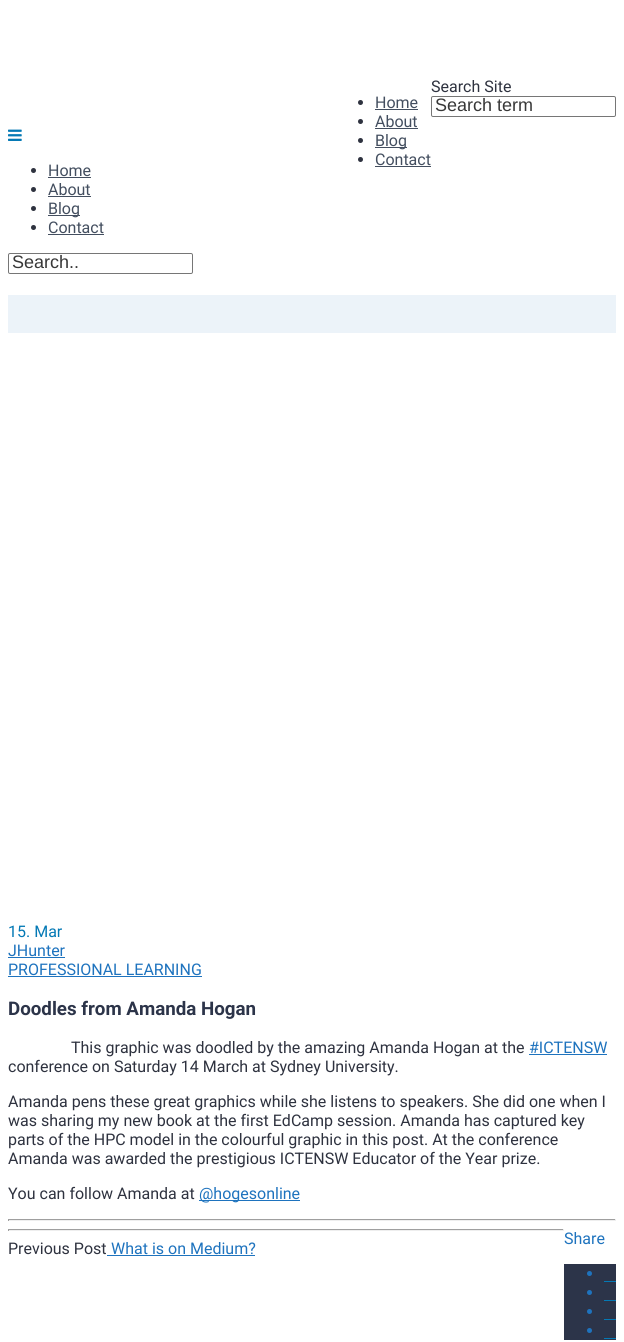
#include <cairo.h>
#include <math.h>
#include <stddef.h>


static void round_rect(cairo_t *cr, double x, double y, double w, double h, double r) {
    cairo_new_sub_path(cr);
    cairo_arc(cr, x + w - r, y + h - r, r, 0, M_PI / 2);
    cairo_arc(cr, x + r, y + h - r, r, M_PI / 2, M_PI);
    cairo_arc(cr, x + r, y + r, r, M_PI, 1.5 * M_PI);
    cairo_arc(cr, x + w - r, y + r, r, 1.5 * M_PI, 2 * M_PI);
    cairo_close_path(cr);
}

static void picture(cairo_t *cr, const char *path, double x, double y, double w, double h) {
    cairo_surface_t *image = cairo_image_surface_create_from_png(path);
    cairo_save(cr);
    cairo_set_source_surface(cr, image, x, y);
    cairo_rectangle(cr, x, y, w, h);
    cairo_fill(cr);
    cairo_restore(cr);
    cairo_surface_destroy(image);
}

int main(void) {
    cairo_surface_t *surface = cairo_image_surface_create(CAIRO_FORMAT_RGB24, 624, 1342);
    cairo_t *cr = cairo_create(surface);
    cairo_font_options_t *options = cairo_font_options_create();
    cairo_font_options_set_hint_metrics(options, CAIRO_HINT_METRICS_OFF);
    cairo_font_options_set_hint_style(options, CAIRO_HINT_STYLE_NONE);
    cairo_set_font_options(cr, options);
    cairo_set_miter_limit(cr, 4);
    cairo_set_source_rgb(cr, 1, 1, 1);
    cairo_paint(cr);
    picture(cr, "img1.png", 8, 129, 14, 12);
    cairo_set_source_rgb(cr, 0.18, 0.196, 0.247);
    cairo_arc(cr, 360.5, 102.5, 2.5, 0, 2 * M_PI);
    cairo_fill(cr);
    cairo_select_font_face(cr, "Roboto", CAIRO_FONT_SLANT_NORMAL, CAIRO_FONT_WEIGHT_NORMAL);
    cairo_set_font_size(cr, 16);
    cairo_set_source_rgb(cr, 0.263, 0.306, 0.373);
    cairo_move_to(cr, 375, 108);
    cairo_show_text(cr, "Home");
    cairo_rectangle(cr, 375, 109, 43, 1);
    cairo_fill(cr);
    cairo_set_source_rgb(cr, 0.18, 0.196, 0.247);
    cairo_arc(cr, 360.5, 121.5, 2.5, 0, 2 * M_PI);
    cairo_fill(cr);
    cairo_set_source_rgb(cr, 0.263, 0.306, 0.373);
    cairo_move_to(cr, 375, 127);
    cairo_show_text(cr, "About");
    cairo_rectangle(cr, 375, 128, 43, 1);
    cairo_fill(cr);
    cairo_set_source_rgb(cr, 0.18, 0.196, 0.247);
    cairo_arc(cr, 360.5, 140.5, 2.5, 0, 2 * M_PI);
    cairo_fill(cr);
    cairo_set_source_rgb(cr, 0.263, 0.306, 0.373);
    cairo_rectangle(cr, 375, 147, 32, 1);
    cairo_fill(cr);
    cairo_move_to(cr, 375, 146);
    cairo_show_text(cr, "Blog");
    cairo_set_source_rgb(cr, 0.18, 0.196, 0.247);
    cairo_new_path(cr);
    cairo_arc(cr, 360.5, 159.5, 2.5, 0, 2 * M_PI);
    cairo_fill(cr);
    cairo_set_source_rgb(cr, 0.263, 0.306, 0.373);
    cairo_move_to(cr, 375, 165);
    cairo_show_text(cr, "Contact");
    cairo_rectangle(cr, 375, 166, 56, 1);
    cairo_fill(cr);
    cairo_set_source_rgb(cr, 0.18, 0.196, 0.247);
    cairo_move_to(cr, 431, 92);
    cairo_show_text(cr, "Search Site");
    round_rect(cr, 431.5, 96.5, 184, 20, 1.5);
    cairo_set_source_rgb(cr, 0.463, 0.463, 0.463);
    cairo_set_line_width(cr, 1);
    cairo_stroke(cr);
    cairo_select_font_face(cr, "Liberation Sans", CAIRO_FONT_SLANT_NORMAL, CAIRO_FONT_WEIGHT_NORMAL);
    cairo_set_font_size(cr, 18);
    cairo_set_source_rgb(cr, 0.22, 0.22, 0.22);
    cairo_move_to(cr, 435, 111);
    cairo_show_text(cr, "Search term");
    cairo_set_source_rgb(cr, 0.18, 0.196, 0.247);
    cairo_new_path(cr);
    cairo_arc(cr, 33.5, 170.5, 2.5, 0, 2 * M_PI);
    cairo_fill(cr);
    cairo_select_font_face(cr, "Roboto", CAIRO_FONT_SLANT_NORMAL, CAIRO_FONT_WEIGHT_NORMAL);
    cairo_set_font_size(cr, 16);
    cairo_set_source_rgb(cr, 0.263, 0.306, 0.373);
    cairo_move_to(cr, 48, 176);
    cairo_show_text(cr, "Home");
    cairo_rectangle(cr, 48, 177, 43, 1);
    cairo_fill(cr);
    cairo_set_source_rgb(cr, 0.18, 0.196, 0.247);
    cairo_arc(cr, 33.5, 189.5, 2.5, 0, 2 * M_PI);
    cairo_fill(cr);
    cairo_set_source_rgb(cr, 0.263, 0.306, 0.373);
    cairo_move_to(cr, 48, 195);
    cairo_show_text(cr, "About");
    cairo_rectangle(cr, 48, 196, 43, 1);
    cairo_fill(cr);
    cairo_set_source_rgb(cr, 0.18, 0.196, 0.247);
    cairo_arc(cr, 33.5, 208.5, 2.5, 0, 2 * M_PI);
    cairo_fill(cr);
    cairo_set_source_rgb(cr, 0.263, 0.306, 0.373);
    cairo_rectangle(cr, 48, 215, 32, 1);
    cairo_fill(cr);
    cairo_move_to(cr, 48, 214);
    cairo_show_text(cr, "Blog");
    cairo_set_source_rgb(cr, 0.18, 0.196, 0.247);
    cairo_new_path(cr);
    cairo_arc(cr, 33.5, 227.5, 2.5, 0, 2 * M_PI);
    cairo_fill(cr);
    cairo_set_source_rgb(cr, 0.263, 0.306, 0.373);
    cairo_move_to(cr, 48, 233);
    cairo_show_text(cr, "Contact");
    cairo_rectangle(cr, 48, 234, 56, 1);
    cairo_fill(cr);
    round_rect(cr, 8.5, 253.5, 184, 20, 1.5);
    cairo_set_source_rgb(cr, 0.463, 0.463, 0.463);
    cairo_stroke(cr);
    cairo_select_font_face(cr, "Liberation Sans", CAIRO_FONT_SLANT_NORMAL, CAIRO_FONT_WEIGHT_NORMAL);
    cairo_set_font_size(cr, 18);
    cairo_set_source_rgb(cr, 0.22, 0.22, 0.22);
    cairo_move_to(cr, 12, 268);
    cairo_show_text(cr, "Search..");
    cairo_set_source_rgb(cr, 0.922, 0.953, 0.976);
    cairo_rectangle(cr, 8, 295, 608, 38);
    cairo_fill(cr);
    cairo_select_font_face(cr, "Roboto", CAIRO_FONT_SLANT_NORMAL, CAIRO_FONT_WEIGHT_NORMAL);
    cairo_set_font_size(cr, 16);
    cairo_set_source_rgb(cr, 0.016, 0.475, 0.71);
    cairo_move_to(cr, 8, 937);
    cairo_show_text(cr, "15. Mar");
    cairo_set_source_rgb(cr, 0.118, 0.451, 0.745);
    cairo_move_to(cr, 8, 956);
    cairo_show_text(cr, "JHunter");
    cairo_rectangle(cr, 8, 957, 57, 1);
    cairo_fill(cr);
    cairo_move_to(cr, 8, 975);
    cairo_show_text(cr, "PROFESSIONAL LEARNING");
    cairo_rectangle(cr, 8, 976, 194, 1);
    cairo_fill(cr);
    cairo_select_font_face(cr, "Roboto", CAIRO_FONT_SLANT_NORMAL, CAIRO_FONT_WEIGHT_BOLD);
    cairo_set_font_size(cr, 18.75);
    cairo_set_source_rgb(cr, 0.173, 0.204, 0.286);
    cairo_move_to(cr, 8, 1015);
    cairo_show_text(cr, "Doodles from Amanda Hogan");
    cairo_select_font_face(cr, "Roboto", CAIRO_FONT_SLANT_NORMAL, CAIRO_FONT_WEIGHT_NORMAL);
    cairo_set_font_size(cr, 16);
    cairo_set_source_rgb(cr, 0.18, 0.196, 0.247);
    cairo_move_to(cr, 71, 1053);
    cairo_show_text(cr, "This graphic was doodled by the amazing Amanda Hogan at the");
    cairo_set_source_rgb(cr, 0.118, 0.451, 0.745);
    cairo_move_to(cr, 529, 1053);
    cairo_show_text(cr, "#ICTENSW");
    cairo_rectangle(cr, 529, 1054, 78, 1);
    cairo_fill(cr);
    cairo_set_source_rgb(cr, 0.18, 0.196, 0.247);
    cairo_move_to(cr, 8, 1072);
    cairo_show_text(cr, "conference on Saturday 14 March at Sydney University.");
    cairo_move_to(cr, 8, 1107);
    cairo_show_text(cr, "Amanda pens these great graphics while she listens to speakers. She did one when I");
    cairo_move_to(cr, 8, 1126);
    cairo_show_text(cr, "was sharing my new book at the first EdCamp session. Amanda has captured key");
    cairo_move_to(cr, 8, 1145);
    cairo_show_text(cr, "parts of the HPC model in the colourful graphic in this post. At the conference");
    cairo_move_to(cr, 8, 1164);
    cairo_show_text(cr, "Amanda was awarded the prestigious ICTENSW Educator of the Year prize.");
    cairo_move_to(cr, 8, 1199);
    cairo_show_text(cr, "You can follow Amanda at");
    cairo_set_source_rgb(cr, 0.118, 0.451, 0.745);
    cairo_rectangle(cr, 199, 1200, 101, 1);
    cairo_fill(cr);
    cairo_move_to(cr, 199, 1199);
    cairo_show_text(cr, "@hogesonline");
    cairo_set_source_rgb(cr, 0.624, 0.624, 0.624);
    cairo_rectangle(cr, 8, 1219, 608, 1);
    cairo_fill(cr);
    cairo_set_source_rgb(cr, 0.933, 0.933, 0.933);
    cairo_rectangle(cr, 615, 1219, 1, 2);
    cairo_fill(cr);
    cairo_rectangle(cr, 8, 1220, 608, 1);
    cairo_fill(cr);
    cairo_set_source_rgb(cr, 0.624, 0.624, 0.624);
    cairo_rectangle(cr, 8, 1219, 1, 2);
    cairo_fill(cr);
    cairo_rectangle(cr, 8, 1229, 556, 1);
    cairo_fill(cr);
    cairo_set_source_rgb(cr, 0.933, 0.933, 0.933);
    cairo_rectangle(cr, 563, 1229, 1, 2);
    cairo_fill(cr);
    cairo_rectangle(cr, 8, 1230, 556, 1);
    cairo_fill(cr);
    cairo_set_source_rgb(cr, 0.624, 0.624, 0.624);
    cairo_rectangle(cr, 8, 1229, 1, 2);
    cairo_fill(cr);
    cairo_set_source_rgb(cr, 0.118, 0.451, 0.745);
    cairo_move_to(cr, 564, 1244);
    cairo_show_text(cr, "Share");
    cairo_set_source_rgb(cr, 0.173, 0.204, 0.286);
    cairo_rectangle(cr, 564, 1264, 52, 76);
    cairo_fill(cr);
    cairo_set_source_rgb(cr, 0.118, 0.451, 0.745);
    cairo_arc(cr, 589.5, 1273.5, 2.5, 0, 2 * M_PI);
    cairo_fill(cr);
    cairo_set_source_rgb(cr, 0.016, 0.475, 0.71);
    cairo_rectangle(cr, 604, 1281, 12, 1);
    cairo_fill(cr);
    cairo_set_source_rgb(cr, 0.118, 0.451, 0.745);
    cairo_arc(cr, 589.5, 1292.5, 2.5, 0, 2 * M_PI);
    cairo_fill(cr);
    cairo_set_source_rgb(cr, 0.016, 0.475, 0.71);
    cairo_rectangle(cr, 604, 1300, 12, 1);
    cairo_fill(cr);
    cairo_set_source_rgb(cr, 0.118, 0.451, 0.745);
    cairo_arc(cr, 589.5, 1311.5, 2.5, 0, 2 * M_PI);
    cairo_fill(cr);
    cairo_set_source_rgb(cr, 0.016, 0.475, 0.71);
    cairo_rectangle(cr, 604, 1319, 12, 1);
    cairo_fill(cr);
    cairo_set_source_rgb(cr, 0.118, 0.451, 0.745);
    cairo_arc(cr, 589.5, 1330.5, 2.5, 0, 2 * M_PI);
    cairo_fill(cr);
    cairo_set_source_rgb(cr, 0.016, 0.475, 0.71);
    cairo_rectangle(cr, 604, 1338, 12, 1);
    cairo_fill(cr);
    cairo_set_source_rgb(cr, 0.18, 0.196, 0.247);
    cairo_move_to(cr, 8, 1254);
    cairo_show_text(cr, "Previous Post");
    cairo_set_source_rgb(cr, 0.118, 0.451, 0.745);
    cairo_move_to(cr, 111, 1254);
    cairo_show_text(cr, "What is on Medium?");
    cairo_rectangle(cr, 107, 1255, 148, 1);
    cairo_fill(cr);
    cairo_surface_write_to_png(surface, "page.png");
    cairo_font_options_destroy(options);
    cairo_destroy(cr);
    cairo_surface_destroy(surface);
    return 0;
}
